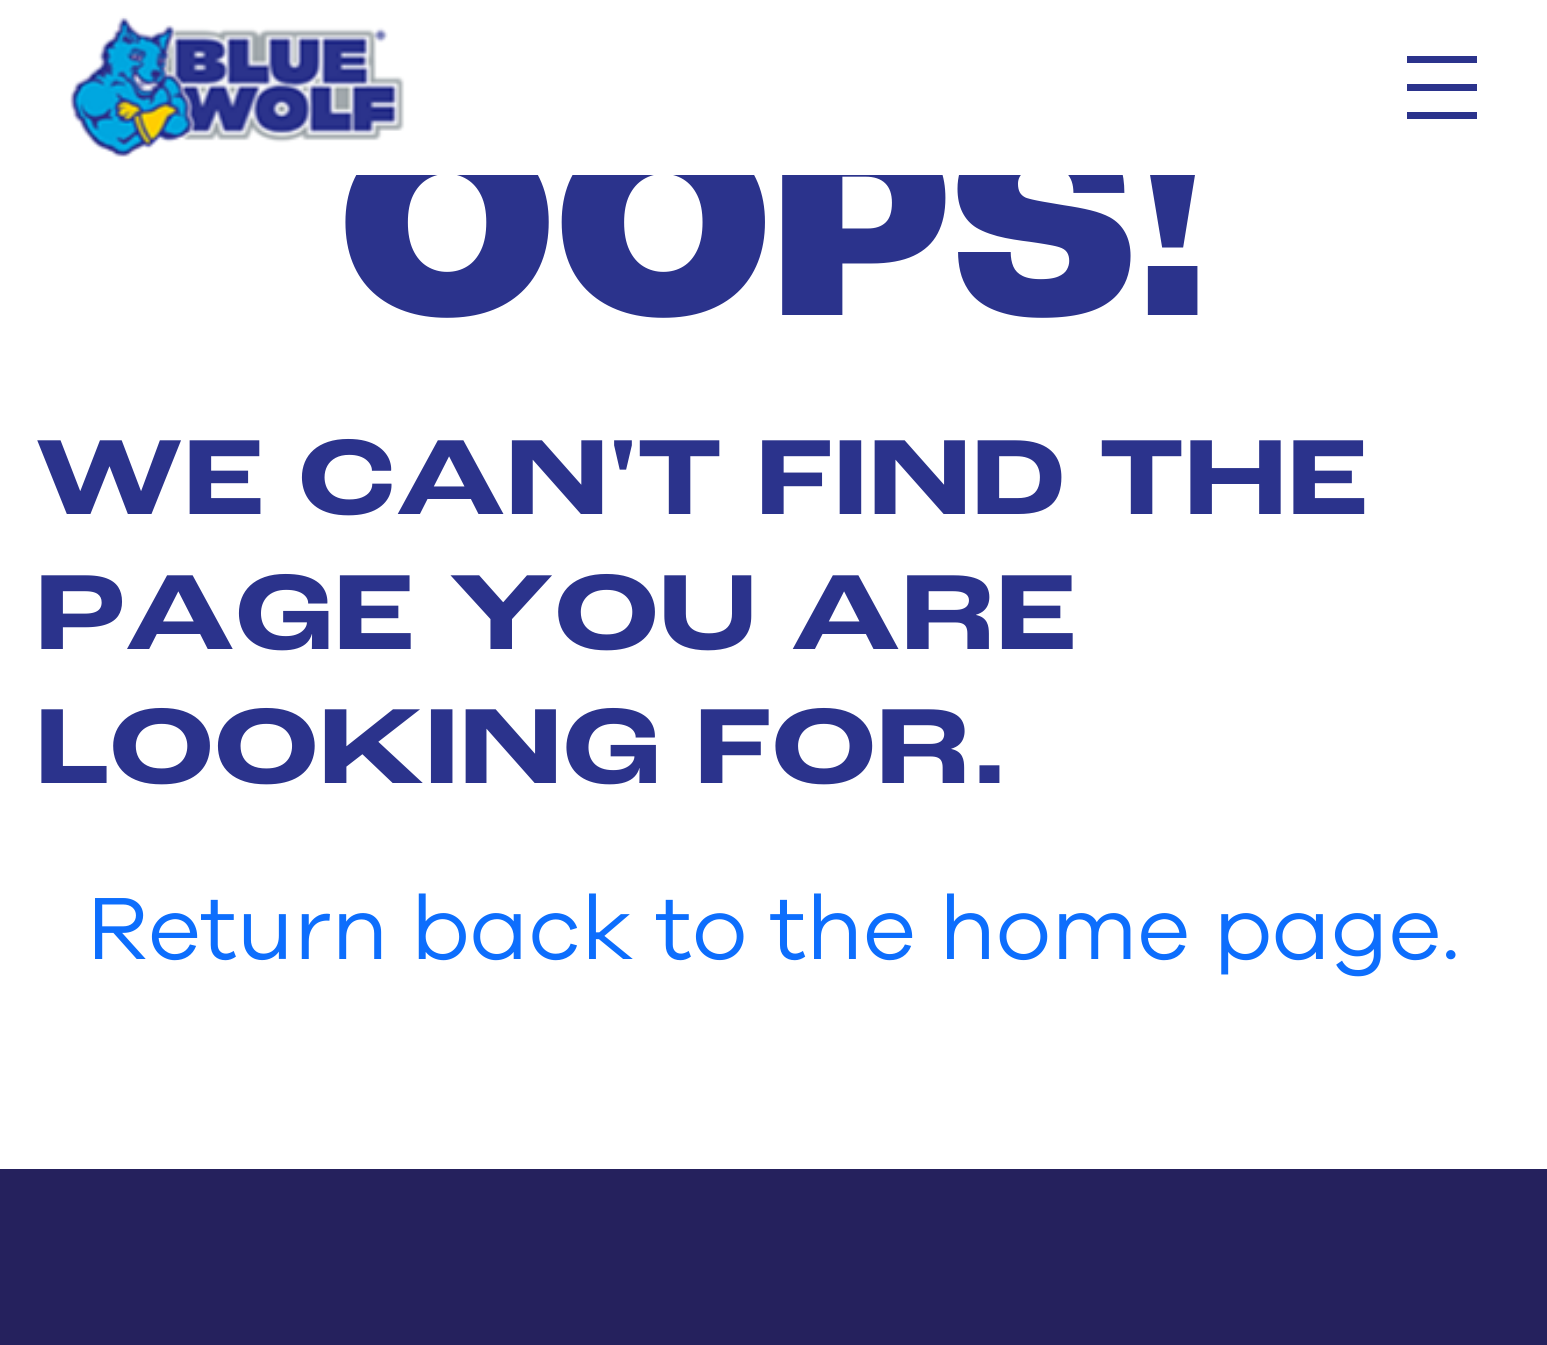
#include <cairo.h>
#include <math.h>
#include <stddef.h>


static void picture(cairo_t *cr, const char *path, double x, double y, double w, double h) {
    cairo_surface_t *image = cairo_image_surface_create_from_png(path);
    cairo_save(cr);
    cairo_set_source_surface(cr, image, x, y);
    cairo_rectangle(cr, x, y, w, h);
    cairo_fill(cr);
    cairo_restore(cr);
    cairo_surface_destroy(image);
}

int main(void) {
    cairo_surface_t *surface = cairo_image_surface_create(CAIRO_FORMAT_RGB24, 1547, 1345);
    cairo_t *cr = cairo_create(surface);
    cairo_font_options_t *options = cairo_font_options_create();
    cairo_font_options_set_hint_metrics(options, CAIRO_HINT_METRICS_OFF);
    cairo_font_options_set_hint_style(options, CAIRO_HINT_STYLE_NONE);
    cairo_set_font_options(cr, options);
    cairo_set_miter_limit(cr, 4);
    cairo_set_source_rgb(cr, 1, 1, 1);
    cairo_paint(cr);
    cairo_select_font_face(cr, "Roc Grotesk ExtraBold", CAIRO_FONT_SLANT_NORMAL, CAIRO_FONT_WEIGHT_NORMAL);
    cairo_set_font_size(cr, 280);
    cairo_set_source_rgb(cr, 0.169, 0.2, 0.549);
    cairo_move_to(cr, 339, 315);
    cairo_show_text(cr, "OOPS!");
    cairo_set_source_rgb(cr, 1, 1, 1);
    cairo_rectangle(cr, 356, 126, 842, 49);
    cairo_fill(cr);
    picture(cr, "img1.png", 69, 16, 336, 141);
    cairo_set_source_rgb(cr, 0.169, 0.2, 0.549);
    cairo_rectangle(cr, 1407, 56, 70, 7);
    cairo_fill(cr);
    cairo_rectangle(cr, 1407, 84, 70, 7);
    cairo_fill(cr);
    cairo_rectangle(cr, 1407, 112, 70, 7);
    cairo_fill(cr);
    cairo_select_font_face(cr, "Roc Grotesk", CAIRO_FONT_SLANT_NORMAL, CAIRO_FONT_WEIGHT_BOLD);
    cairo_set_font_size(cr, 112);
    cairo_move_to(cr, 35, 514);
    cairo_show_text(cr, "WE CAN'T FIND THE");
    cairo_move_to(cr, 35, 649);
    cairo_show_text(cr, "PAGE YOU ARE");
    cairo_move_to(cr, 35, 783);
    cairo_show_text(cr, "LOOKING FOR.");
    cairo_select_font_face(cr, "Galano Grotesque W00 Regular", CAIRO_FONT_SLANT_NORMAL, CAIRO_FONT_WEIGHT_NORMAL);
    cairo_set_font_size(cr, 91);
    cairo_set_source_rgb(cr, 0.051, 0.431, 0.992);
    cairo_move_to(cr, 87, 959);
    cairo_show_text(cr, "Return back to the home page.");
    cairo_set_source_rgb(cr, 0.145, 0.129, 0.365);
    cairo_rectangle(cr, 0, 1169, 1547, 176);
    cairo_fill(cr);
    cairo_surface_write_to_png(surface, "page.png");
    cairo_font_options_destroy(options);
    cairo_destroy(cr);
    cairo_surface_destroy(surface);
    return 0;
}
